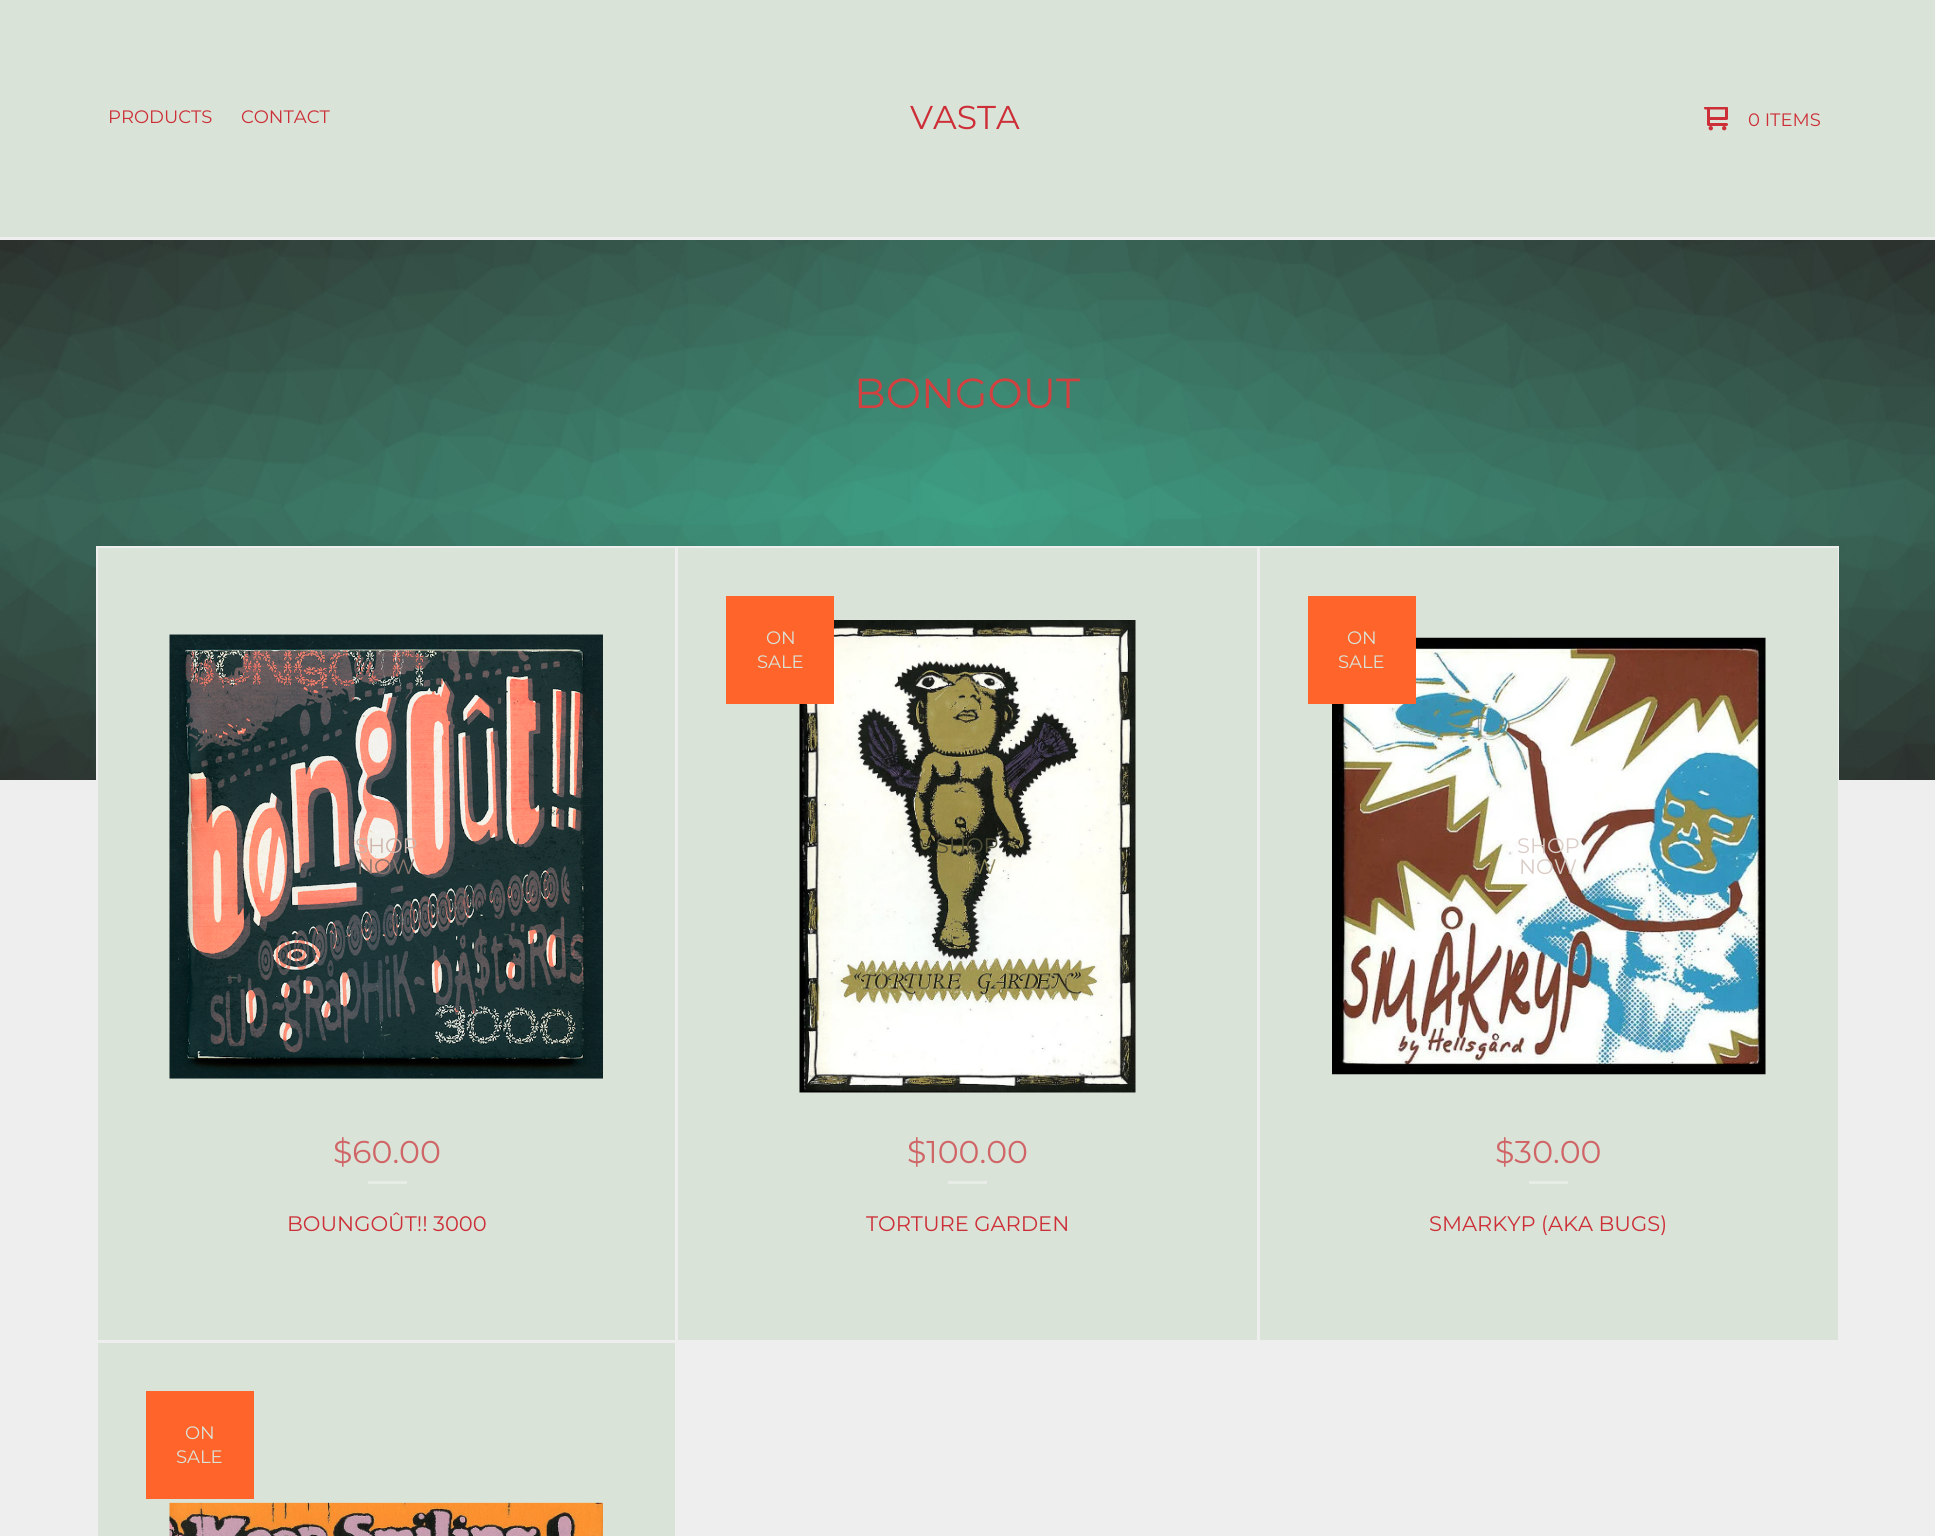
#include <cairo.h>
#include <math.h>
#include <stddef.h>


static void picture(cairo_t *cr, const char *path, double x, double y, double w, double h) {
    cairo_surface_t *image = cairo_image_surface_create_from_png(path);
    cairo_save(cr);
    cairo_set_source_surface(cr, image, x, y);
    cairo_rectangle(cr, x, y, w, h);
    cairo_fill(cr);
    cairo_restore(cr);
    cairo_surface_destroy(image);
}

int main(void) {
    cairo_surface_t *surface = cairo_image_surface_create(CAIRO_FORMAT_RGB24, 1935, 1536);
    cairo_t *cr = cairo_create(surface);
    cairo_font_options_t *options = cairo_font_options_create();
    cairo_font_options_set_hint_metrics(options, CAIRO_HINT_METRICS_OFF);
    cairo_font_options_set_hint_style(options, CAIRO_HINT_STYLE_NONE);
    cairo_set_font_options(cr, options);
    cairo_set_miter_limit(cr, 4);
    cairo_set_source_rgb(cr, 0.933, 0.933, 0.933);
    cairo_paint(cr);
    cairo_set_source_rgb(cr, 0.855, 0.89, 0.843);
    cairo_rectangle(cr, 0, 0, 1935, 237);
    cairo_fill(cr);
    cairo_select_font_face(cr, "Montserrat", CAIRO_FONT_SLANT_NORMAL, CAIRO_FONT_WEIGHT_NORMAL);
    cairo_set_font_size(cr, 18);
    cairo_set_source_rgb(cr, 0.8, 0.184, 0.216);
    cairo_move_to(cr, 108, 123);
    cairo_show_text(cr, "PRODUCTS");
    cairo_move_to(cr, 241, 123);
    cairo_show_text(cr, "CONTACT");
    cairo_set_font_size(cr, 33);
    cairo_move_to(cr, 910, 129);
    cairo_show_text(cr, "VASTA");
    picture(cr, "img1.png", 1704, 107, 24, 24);
    cairo_set_font_size(cr, 18);
    cairo_move_to(cr, 1748, 126);
    cairo_show_text(cr, "0 ITEMS");
    picture(cr, "img2.png", 0, 240, 1935, 540);
    cairo_set_font_size(cr, 42);
    cairo_set_source_rgb(cr, 0.831, 0.247, 0.247);
    cairo_move_to(cr, 854, 408);
    cairo_show_text(cr, "BONGOUT");
    cairo_set_source_rgb(cr, 0.933, 0.933, 0.933);
    cairo_rectangle(cr, 96, 546, 1743, 234);
    cairo_fill(cr);
    cairo_set_source_rgb(cr, 0.855, 0.89, 0.843);
    cairo_rectangle(cr, 98, 548, 577, 792);
    cairo_fill(cr);
    picture(cr, "img3.png", 169, 634, 434, 445);
    cairo_set_font_size(cr, 21);
    cairo_set_source_rgb(cr, 0.812, 0.714, 0.678);
    cairo_move_to(cr, 355, 853);
    cairo_show_text(cr, "SHOP");
    cairo_set_source_rgb(cr, 0.541, 0.455, 0.424);
    cairo_move_to(cr, 357, 874);
    cairo_show_text(cr, "NOW");
    cairo_set_font_size(cr, 31.5);
    cairo_set_source_rgb(cr, 0.816, 0.396, 0.404);
    cairo_move_to(cr, 333, 1163);
    cairo_show_text(cr, "$60.00");
    cairo_set_source_rgb(cr, 0.91, 0.922, 0.906);
    cairo_rectangle(cr, 368, 1181, 39, 3);
    cairo_fill(cr);
    cairo_set_font_size(cr, 21);
    cairo_set_source_rgb(cr, 0.8, 0.184, 0.216);
    cairo_move_to(cr, 287, 1231);
    cairo_show_text(cr, "BOUNGOÛT!! 3000");
    cairo_set_source_rgb(cr, 0.855, 0.89, 0.843);
    cairo_rectangle(cr, 678, 548, 579, 792);
    cairo_fill(cr);
    picture(cr, "img4.png", 799, 620, 337, 473);
    cairo_set_source_rgb(cr, 1, 0.392, 0.165);
    cairo_rectangle(cr, 726, 596, 108, 108);
    cairo_fill(cr);
    cairo_set_font_size(cr, 18);
    cairo_set_source_rgb(cr, 0.855, 0.89, 0.843);
    cairo_move_to(cr, 766, 644);
    cairo_show_text(cr, "ON");
    cairo_move_to(cr, 757, 668);
    cairo_show_text(cr, "SALE");
    cairo_set_font_size(cr, 21);
    cairo_set_source_rgb(cr, 0.31, 0.306, 0.216);
    cairo_move_to(cr, 936, 853);
    cairo_show_text(cr, "SHOP");
    cairo_set_source_rgb(cr, 0.553, 0.522, 0.345);
    cairo_move_to(cr, 973, 874);
    cairo_show_text(cr, "W");
    cairo_set_font_size(cr, 31.5);
    cairo_set_source_rgb(cr, 0.816, 0.396, 0.404);
    cairo_move_to(cr, 907, 1163);
    cairo_show_text(cr, "$100.00");
    cairo_set_source_rgb(cr, 0.91, 0.922, 0.906);
    cairo_rectangle(cr, 948, 1181, 39, 3);
    cairo_fill(cr);
    cairo_set_font_size(cr, 21);
    cairo_set_source_rgb(cr, 0.8, 0.184, 0.216);
    cairo_move_to(cr, 866, 1231);
    cairo_show_text(cr, "TORTURE GARDEN");
    cairo_set_source_rgb(cr, 0.855, 0.89, 0.843);
    cairo_rectangle(cr, 1260, 548, 578, 792);
    cairo_fill(cr);
    picture(cr, "img5.png", 1332, 637, 434, 438);
    cairo_set_source_rgb(cr, 1, 0.392, 0.165);
    cairo_rectangle(cr, 1308, 596, 108, 108);
    cairo_fill(cr);
    cairo_set_font_size(cr, 18);
    cairo_set_source_rgb(cr, 0.855, 0.89, 0.843);
    cairo_move_to(cr, 1347, 644);
    cairo_show_text(cr, "ON");
    cairo_move_to(cr, 1338, 668);
    cairo_show_text(cr, "SALE");
    cairo_set_font_size(cr, 21);
    cairo_set_source_rgb(cr, 0.855, 0.8, 0.78);
    cairo_move_to(cr, 1517, 853);
    cairo_show_text(cr, "SHOP");
    cairo_move_to(cr, 1519, 874);
    cairo_show_text(cr, "NOW");
    cairo_set_font_size(cr, 31.5);
    cairo_set_source_rgb(cr, 0.816, 0.396, 0.404);
    cairo_move_to(cr, 1495, 1163);
    cairo_show_text(cr, "$30.00");
    cairo_set_source_rgb(cr, 0.91, 0.922, 0.906);
    cairo_rectangle(cr, 1529, 1181, 39, 3);
    cairo_fill(cr);
    cairo_set_font_size(cr, 21);
    cairo_set_source_rgb(cr, 0.8, 0.184, 0.216);
    cairo_move_to(cr, 1429, 1231);
    cairo_show_text(cr, "SMARKYP (AKA BUGS)");
    cairo_set_source_rgb(cr, 0.855, 0.89, 0.843);
    cairo_rectangle(cr, 98, 1343, 577, 193);
    cairo_fill(cr);
    cairo_set_source_rgb(cr, 1, 0.392, 0.165);
    cairo_rectangle(cr, 146, 1391, 108, 108);
    cairo_fill(cr);
    cairo_set_font_size(cr, 18);
    cairo_set_source_rgb(cr, 0.855, 0.89, 0.843);
    cairo_move_to(cr, 185, 1439);
    cairo_show_text(cr, "ON");
    cairo_move_to(cr, 176, 1463);
    cairo_show_text(cr, "SALE");
    picture(cr, "img6.png", 169, 1502, 434, 34);
    cairo_surface_write_to_png(surface, "page.png");
    cairo_font_options_destroy(options);
    cairo_destroy(cr);
    cairo_surface_destroy(surface);
    return 0;
}
